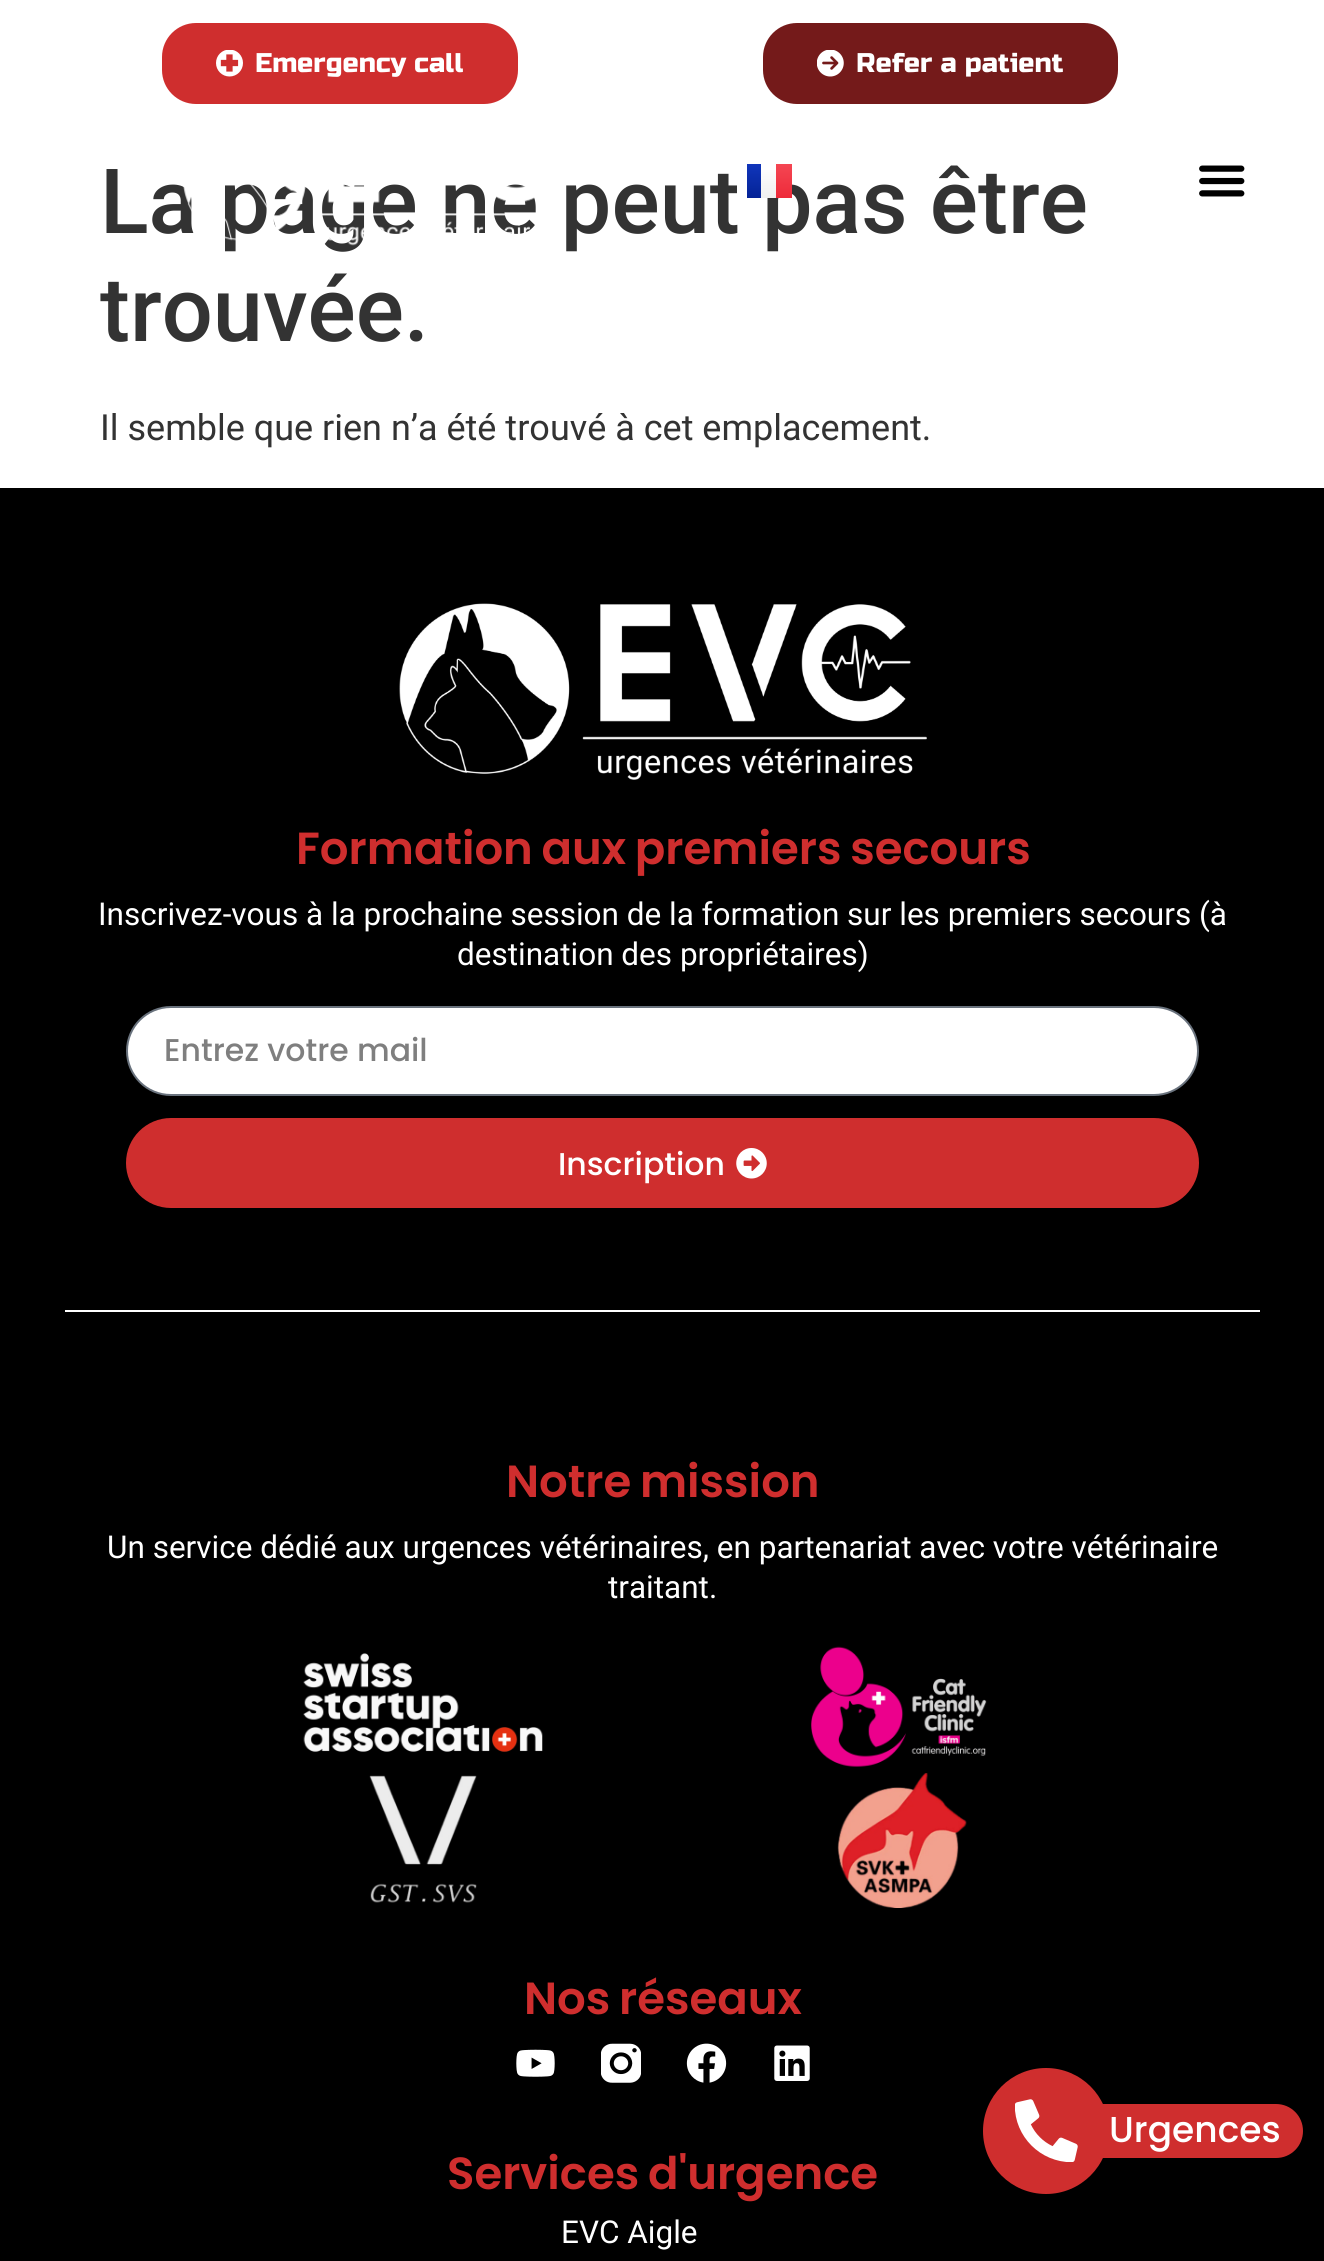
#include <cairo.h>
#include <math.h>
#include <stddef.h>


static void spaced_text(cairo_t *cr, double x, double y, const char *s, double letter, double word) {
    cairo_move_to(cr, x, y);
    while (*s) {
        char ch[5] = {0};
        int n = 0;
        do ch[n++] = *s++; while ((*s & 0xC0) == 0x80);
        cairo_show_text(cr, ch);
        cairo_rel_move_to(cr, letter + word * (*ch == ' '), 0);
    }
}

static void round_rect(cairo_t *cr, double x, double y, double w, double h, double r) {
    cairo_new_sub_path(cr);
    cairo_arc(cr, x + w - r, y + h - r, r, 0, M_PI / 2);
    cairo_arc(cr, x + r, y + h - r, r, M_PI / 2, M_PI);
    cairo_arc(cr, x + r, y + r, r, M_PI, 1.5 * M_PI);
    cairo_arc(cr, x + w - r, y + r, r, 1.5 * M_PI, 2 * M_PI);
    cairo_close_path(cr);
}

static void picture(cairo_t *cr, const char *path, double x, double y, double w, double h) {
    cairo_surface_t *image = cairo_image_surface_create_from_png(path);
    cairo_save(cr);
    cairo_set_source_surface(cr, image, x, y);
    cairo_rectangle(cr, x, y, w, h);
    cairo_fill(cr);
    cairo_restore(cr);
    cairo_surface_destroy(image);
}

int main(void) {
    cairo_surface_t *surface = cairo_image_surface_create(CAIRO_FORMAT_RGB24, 1324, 2261);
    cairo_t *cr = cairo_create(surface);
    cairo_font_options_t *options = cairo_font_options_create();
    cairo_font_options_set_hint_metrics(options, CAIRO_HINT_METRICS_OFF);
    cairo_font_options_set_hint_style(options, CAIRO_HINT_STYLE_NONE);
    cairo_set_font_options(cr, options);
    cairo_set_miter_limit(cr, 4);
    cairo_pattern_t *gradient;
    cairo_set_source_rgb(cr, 1, 1, 1);
    cairo_paint(cr);
    cairo_set_source_rgb(cr, 0.812, 0.18, 0.18);
    round_rect(cr, 162, 23, 356, 81, 34);
    cairo_fill(cr);
    picture(cr, "img1.png", 216, 50, 27, 27);
    cairo_select_font_face(cr, "Russo One", CAIRO_FONT_SLANT_NORMAL, CAIRO_FONT_WEIGHT_NORMAL);
    cairo_set_font_size(cr, 27);
    cairo_set_source_rgb(cr, 1, 1, 1);
    cairo_move_to(cr, 255, 72);
    cairo_show_text(cr, "Emergency call");
    cairo_set_source_rgb(cr, 0.455, 0.102, 0.102);
    round_rect(cr, 763, 23, 355, 81, 34);
    cairo_fill(cr);
    picture(cr, "img2.png", 817, 50, 27, 27);
    cairo_set_source_rgb(cr, 1, 1, 1);
    cairo_move_to(cr, 856, 72);
    cairo_show_text(cr, "Refer a patient");
    cairo_select_font_face(cr, "Roboto Medium", CAIRO_FONT_SLANT_NORMAL, CAIRO_FONT_WEIGHT_NORMAL);
    cairo_set_font_size(cr, 90);
    cairo_set_source_rgb(cr, 0.2, 0.2, 0.2);
    cairo_move_to(cr, 100, 233);
    cairo_show_text(cr, "La page ne peut pas être");
    picture(cr, "img3.png", 183, 184, 352, 62);
    gradient = cairo_pattern_create_linear(753, 164, 753, 198);
    cairo_pattern_add_color_stop_rgba(gradient, 0, 0.063, 0.208, 0.733, 1);
    cairo_pattern_add_color_stop_rgba(gradient, 1, 0.016, 0.137, 0.588, 1);
    cairo_set_source(cr, gradient);
    cairo_pattern_destroy(gradient);
    cairo_rectangle(cr, 747, 164, 14, 34);
    cairo_fill(cr);
    gradient = cairo_pattern_create_linear(768, 164, 768, 198);
    cairo_pattern_add_color_stop_rgba(gradient, 0, 1, 1, 1, 1);
    cairo_pattern_add_color_stop_rgba(gradient, 1, 0.941, 0.941, 0.941, 1);
    cairo_set_source(cr, gradient);
    cairo_pattern_destroy(gradient);
    cairo_rectangle(cr, 761, 170, 15, 28);
    cairo_fill(cr);
    gradient = cairo_pattern_create_linear(780, 164, 780, 198);
    cairo_pattern_add_color_stop_rgba(gradient, 0, 0.957, 0.275, 0.325, 1);
    cairo_pattern_add_color_stop_rgba(gradient, 1, 0.933, 0.165, 0.224, 1);
    cairo_set_source(cr, gradient);
    cairo_pattern_destroy(gradient);
    cairo_rectangle(cr, 776, 164, 16, 34);
    cairo_fill(cr);
    picture(cr, "img4.png", 1199, 165, 46, 32);
    cairo_set_source_rgb(cr, 0.2, 0.2, 0.2);
    cairo_move_to(cr, 100, 341);
    cairo_show_text(cr, "trouvée.");
    cairo_select_font_face(cr, "Roboto", CAIRO_FONT_SLANT_NORMAL, CAIRO_FONT_WEIGHT_NORMAL);
    cairo_set_font_size(cr, 36);
    cairo_move_to(cr, 100, 440);
    cairo_show_text(cr, "Il semble que rien n’a été trouvé à cet emplacement.");
    cairo_set_source_rgb(cr, 0, 0, 0);
    cairo_rectangle(cr, 0, 488, 1324, 1773);
    cairo_fill(cr);
    picture(cr, "img5.png", 399, 603, 528, 177);
    cairo_select_font_face(cr, "Poppins SemiBold", CAIRO_FONT_SLANT_NORMAL, CAIRO_FONT_WEIGHT_NORMAL);
    cairo_set_font_size(cr, 45);
    cairo_set_source_rgb(cr, 0.812, 0.18, 0.18);
    spaced_text(cr, 296, 864, "Formation aux premiers secours", 0, -2);
    cairo_select_font_face(cr, "Roboto", CAIRO_FONT_SLANT_NORMAL, CAIRO_FONT_WEIGHT_NORMAL);
    cairo_set_font_size(cr, 31.5);
    cairo_set_source_rgb(cr, 1, 1, 1);
    cairo_move_to(cr, 98, 925);
    cairo_show_text(cr, "Inscrivez-vous à la prochaine session de la formation sur les premiers secours (à");
    cairo_move_to(cr, 457, 965);
    cairo_show_text(cr, "destination des propriétaires)");
    round_rect(cr, 127, 1007, 1071, 88, 44);
    cairo_fill_preserve(cr);
    cairo_set_source_rgb(cr, 0.412, 0.447, 0.49);
    cairo_stroke(cr);
    cairo_select_font_face(cr, "Poppins Medium", CAIRO_FONT_SLANT_NORMAL, CAIRO_FONT_WEIGHT_NORMAL);
    cairo_set_source_rgb(cr, 0.498, 0.498, 0.498);
    cairo_move_to(cr, 164, 1061);
    cairo_show_text(cr, "Entrez votre mail");
    cairo_set_source_rgb(cr, 0.812, 0.18, 0.18);
    round_rect(cr, 126, 1118, 1073, 90, 45);
    cairo_fill(cr);
    cairo_set_source_rgb(cr, 1, 1, 1);
    cairo_move_to(cr, 558, 1175);
    cairo_show_text(cr, "Inscription");
    picture(cr, "img6.png", 736, 1148, 31, 31);
    cairo_rectangle(cr, 65, 1310, 1195, 2);
    cairo_fill(cr);
    cairo_select_font_face(cr, "Poppins SemiBold", CAIRO_FONT_SLANT_NORMAL, CAIRO_FONT_WEIGHT_NORMAL);
    cairo_set_font_size(cr, 45);
    cairo_set_source_rgb(cr, 0.812, 0.18, 0.18);
    spaced_text(cr, 506, 1497, "Notre mission", 0, -2);
    cairo_select_font_face(cr, "Roboto", CAIRO_FONT_SLANT_NORMAL, CAIRO_FONT_WEIGHT_NORMAL);
    cairo_set_font_size(cr, 31.5);
    cairo_set_source_rgb(cr, 1, 1, 1);
    cairo_move_to(cr, 107, 1558);
    cairo_show_text(cr, "Un service dédié aux urgences vétérinaires, en partenariat avec votre vétérinaire");
    cairo_move_to(cr, 608, 1598);
    cairo_show_text(cr, "traitant.");
    picture(cr, "img7.png", 303, 1653, 240, 99);
    picture(cr, "img8.png", 811, 1646, 176, 121);
    picture(cr, "img9.png", 369, 1775, 108, 128);
    picture(cr, "img10.png", 837, 1773, 130, 135);
    cairo_select_font_face(cr, "Poppins SemiBold", CAIRO_FONT_SLANT_NORMAL, CAIRO_FONT_WEIGHT_NORMAL);
    cairo_set_font_size(cr, 45);
    cairo_set_source_rgb(cr, 0.812, 0.18, 0.18);
    spaced_text(cr, 524, 2014, "Nos réseaux", 0, -2);
    picture(cr, "img11.png", 516, 2049, 39, 28);
    picture(cr, "img12.png", 601, 2043, 40, 40);
    picture(cr, "img13.png", 686, 2043, 41, 40);
    picture(cr, "img14.png", 774, 2045, 36, 36);
    spaced_text(cr, 447, 2189, "Services d'urgence", 0, -2);
    cairo_select_font_face(cr, "Roboto", CAIRO_FONT_SLANT_NORMAL, CAIRO_FONT_WEIGHT_NORMAL);
    cairo_set_font_size(cr, 31.5);
    cairo_set_source_rgb(cr, 1, 1, 1);
    cairo_move_to(cr, 561, 2243);
    cairo_show_text(cr, "EVC Aigle");
    cairo_set_source_rgb(cr, 0.812, 0.18, 0.18);
    cairo_new_path(cr);
    cairo_move_to(cr, 1087, 2104);
    cairo_line_to(cr, 1276, 2104);
    cairo_curve_to(cr, 1291, 2104, 1303, 2116, 1303, 2131);
    cairo_curve_to(cr, 1303, 2146, 1291, 2158, 1276, 2158);
    cairo_line_to(cr, 1087, 2158);
    cairo_close_path(cr);
    cairo_fill(cr);
    cairo_arc(cr, 1046, 2131, 63, 0, 2 * M_PI);
    cairo_fill(cr);
    picture(cr, "img15.png", 1015, 2099, 63, 63);
    cairo_select_font_face(cr, "Poppins Medium", CAIRO_FONT_SLANT_NORMAL, CAIRO_FONT_WEIGHT_NORMAL);
    cairo_set_font_size(cr, 36);
    cairo_set_source_rgb(cr, 1, 1, 1);
    cairo_move_to(cr, 1109, 2142);
    cairo_show_text(cr, "Urgences");
    cairo_surface_write_to_png(surface, "page.png");
    cairo_font_options_destroy(options);
    cairo_destroy(cr);
    cairo_surface_destroy(surface);
    return 0;
}
